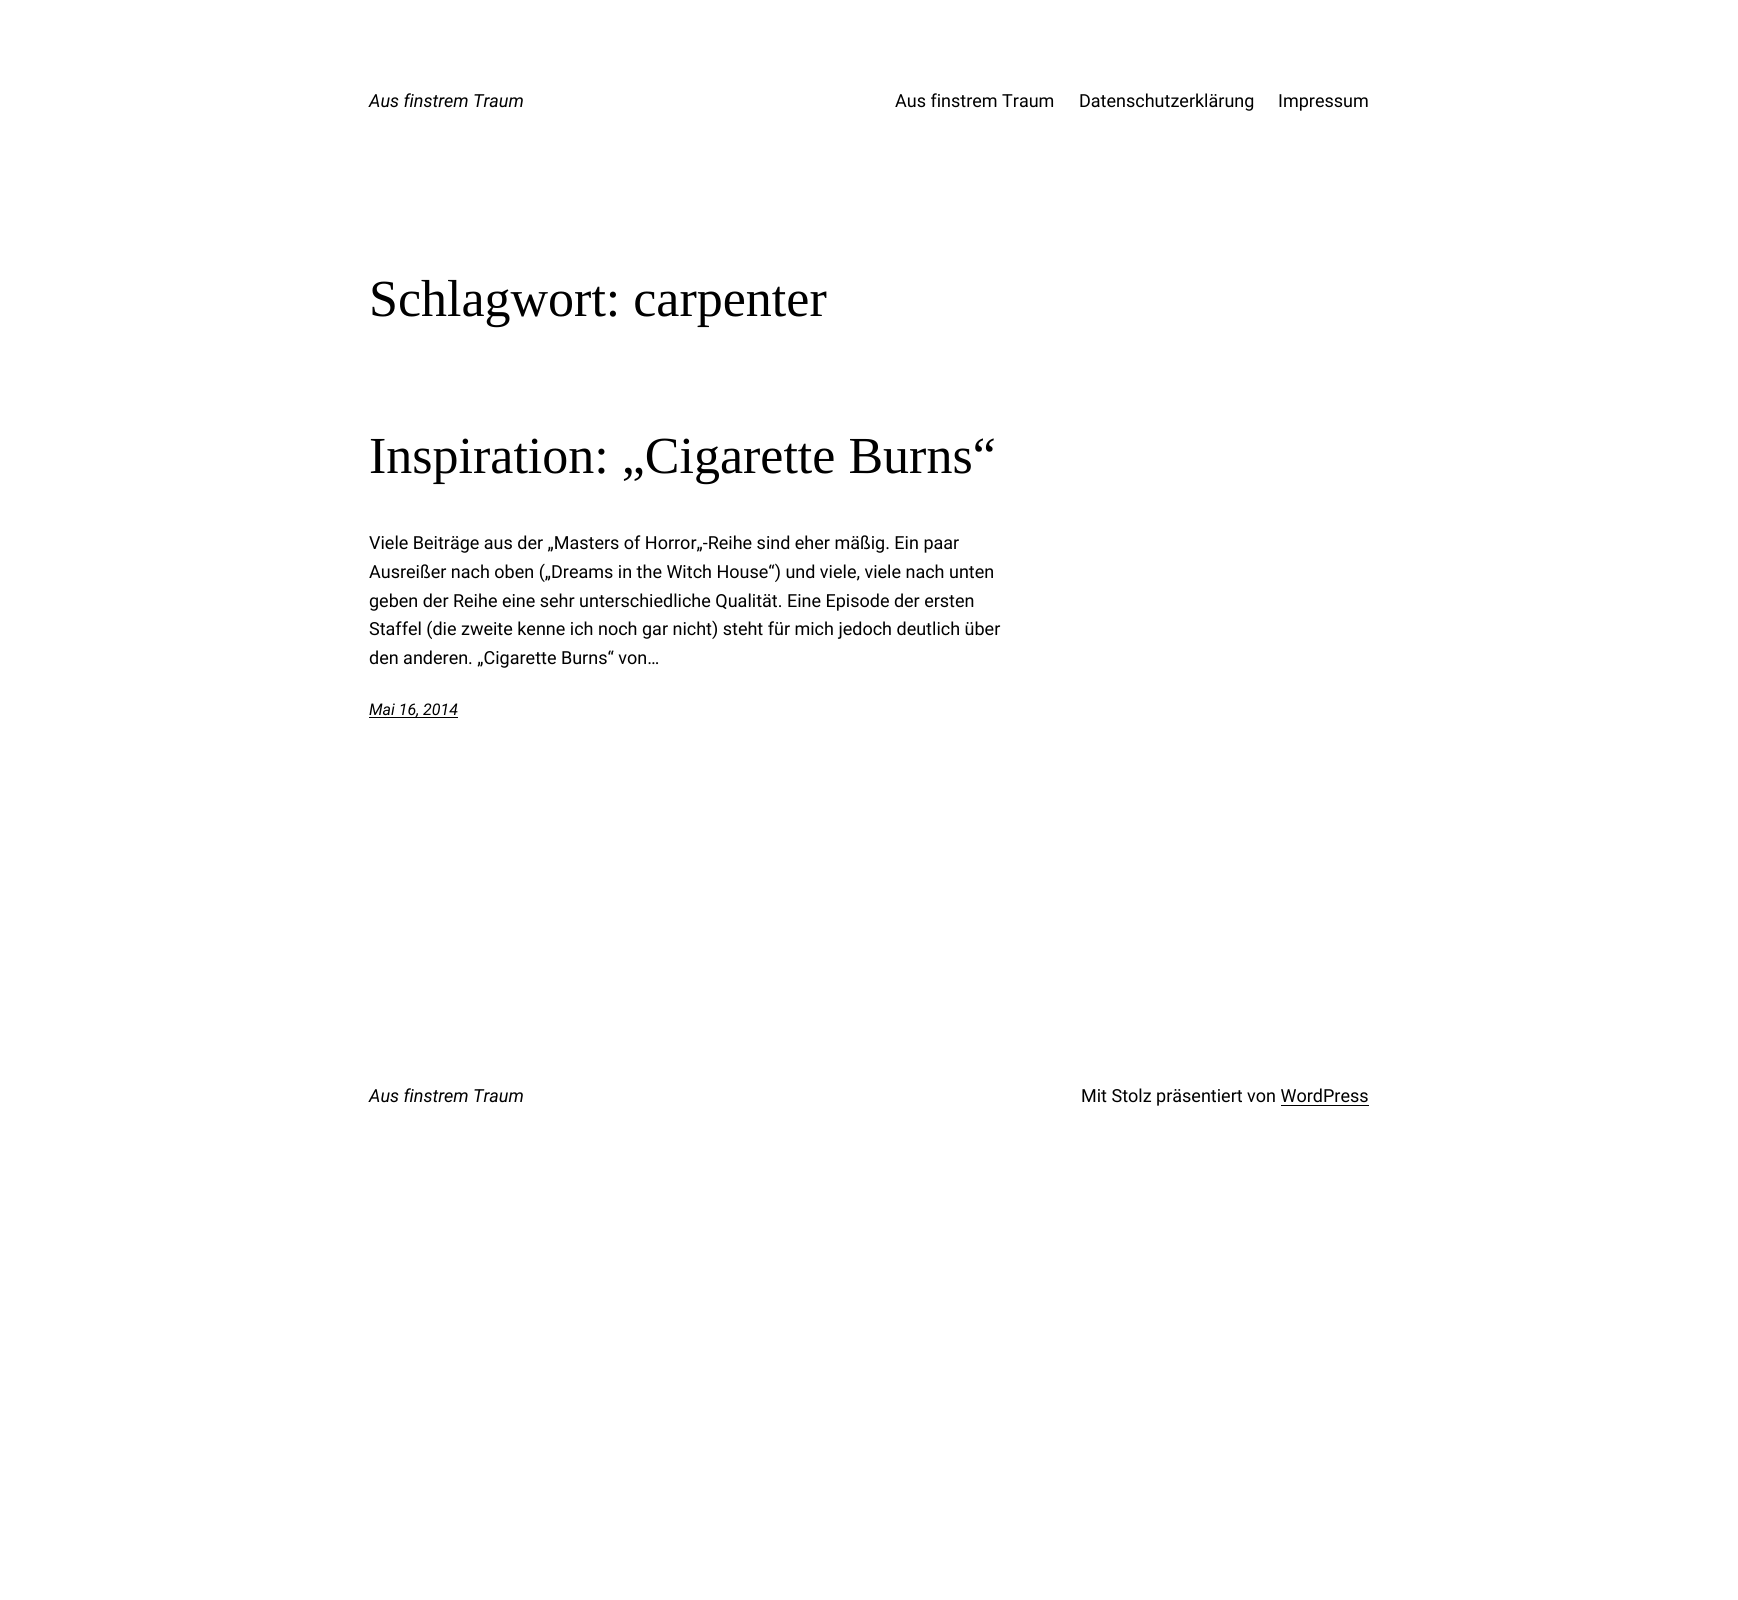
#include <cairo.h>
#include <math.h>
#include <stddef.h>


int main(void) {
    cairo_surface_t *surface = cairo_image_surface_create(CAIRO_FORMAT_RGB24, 1738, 1600);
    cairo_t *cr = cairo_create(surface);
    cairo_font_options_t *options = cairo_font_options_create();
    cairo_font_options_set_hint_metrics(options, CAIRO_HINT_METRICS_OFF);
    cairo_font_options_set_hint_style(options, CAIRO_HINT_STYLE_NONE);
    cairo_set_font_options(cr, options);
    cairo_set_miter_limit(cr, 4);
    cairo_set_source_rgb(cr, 1, 1, 1);
    cairo_paint(cr);
    cairo_select_font_face(cr, "Roboto", CAIRO_FONT_SLANT_ITALIC, CAIRO_FONT_WEIGHT_NORMAL);
    cairo_set_font_size(cr, 18);
    cairo_set_source_rgb(cr, 0, 0, 0);
    cairo_move_to(cr, 369, 107);
    cairo_show_text(cr, "Aus finstrem Traum");
    cairo_select_font_face(cr, "Roboto", CAIRO_FONT_SLANT_NORMAL, CAIRO_FONT_WEIGHT_NORMAL);
    cairo_move_to(cr, 895, 107);
    cairo_show_text(cr, "Aus finstrem Traum");
    cairo_move_to(cr, 1079, 107);
    cairo_show_text(cr, "Datenschutzerklärung");
    cairo_move_to(cr, 1278, 107);
    cairo_show_text(cr, "Impressum");
    cairo_select_font_face(cr, "Liberation Serif", CAIRO_FONT_SLANT_NORMAL, CAIRO_FONT_WEIGHT_NORMAL);
    cairo_set_font_size(cr, 52);
    cairo_move_to(cr, 369, 316);
    cairo_show_text(cr, "Schlagwort: carpenter");
    cairo_move_to(cr, 369, 473);
    cairo_show_text(cr, "Inspiration: „Cigarette Burns“");
    cairo_select_font_face(cr, "Roboto", CAIRO_FONT_SLANT_NORMAL, CAIRO_FONT_WEIGHT_NORMAL);
    cairo_set_font_size(cr, 18);
    cairo_move_to(cr, 369, 549);
    cairo_show_text(cr, "Viele Beiträge aus der „Masters of Horror„-Reihe sind eher mäßig. Ein paar");
    cairo_move_to(cr, 369, 578);
    cairo_show_text(cr, "Ausreißer nach oben („Dreams in the Witch House“) und viele, viele nach unten");
    cairo_move_to(cr, 369, 607);
    cairo_show_text(cr, "geben der Reihe eine sehr unterschiedliche Qualität. Eine Episode der ersten");
    cairo_move_to(cr, 369, 635);
    cairo_show_text(cr, "Staffel (die zweite kenne ich noch gar nicht) steht für mich jedoch deutlich über");
    cairo_move_to(cr, 369, 664);
    cairo_show_text(cr, "den anderen. „Cigarette Burns“ von…");
    cairo_rectangle(cr, 369, 717, 89, 1);
    cairo_fill(cr);
    cairo_select_font_face(cr, "Roboto", CAIRO_FONT_SLANT_ITALIC, CAIRO_FONT_WEIGHT_NORMAL);
    cairo_set_font_size(cr, 16);
    cairo_move_to(cr, 369, 715);
    cairo_show_text(cr, "Mai 16, 2014");
    cairo_set_font_size(cr, 18);
    cairo_move_to(cr, 369, 1102);
    cairo_show_text(cr, "Aus finstrem Traum");
    cairo_select_font_face(cr, "Roboto", CAIRO_FONT_SLANT_NORMAL, CAIRO_FONT_WEIGHT_NORMAL);
    cairo_move_to(cr, 1081, 1102);
    cairo_show_text(cr, "Mit Stolz präsentiert von WordPress");
    cairo_rectangle(cr, 1281, 1105, 88, 1);
    cairo_fill(cr);
    cairo_surface_write_to_png(surface, "page.png");
    cairo_font_options_destroy(options);
    cairo_destroy(cr);
    cairo_surface_destroy(surface);
    return 0;
}
